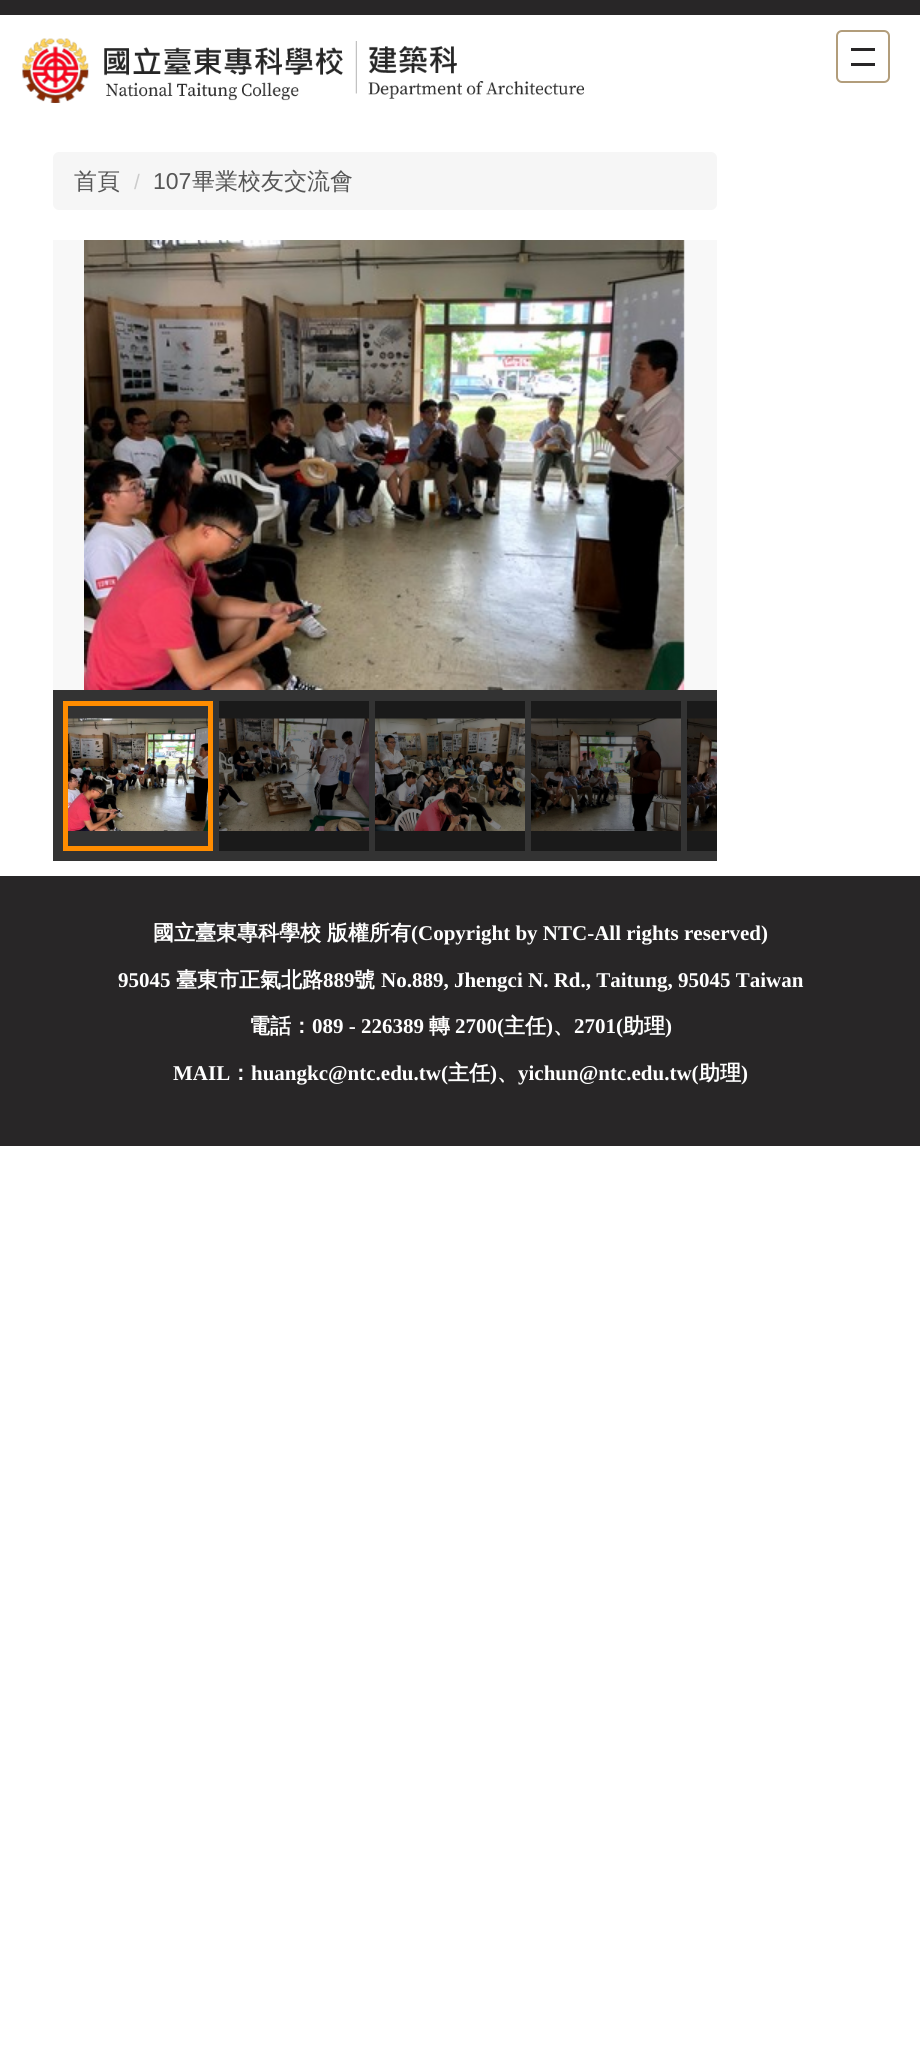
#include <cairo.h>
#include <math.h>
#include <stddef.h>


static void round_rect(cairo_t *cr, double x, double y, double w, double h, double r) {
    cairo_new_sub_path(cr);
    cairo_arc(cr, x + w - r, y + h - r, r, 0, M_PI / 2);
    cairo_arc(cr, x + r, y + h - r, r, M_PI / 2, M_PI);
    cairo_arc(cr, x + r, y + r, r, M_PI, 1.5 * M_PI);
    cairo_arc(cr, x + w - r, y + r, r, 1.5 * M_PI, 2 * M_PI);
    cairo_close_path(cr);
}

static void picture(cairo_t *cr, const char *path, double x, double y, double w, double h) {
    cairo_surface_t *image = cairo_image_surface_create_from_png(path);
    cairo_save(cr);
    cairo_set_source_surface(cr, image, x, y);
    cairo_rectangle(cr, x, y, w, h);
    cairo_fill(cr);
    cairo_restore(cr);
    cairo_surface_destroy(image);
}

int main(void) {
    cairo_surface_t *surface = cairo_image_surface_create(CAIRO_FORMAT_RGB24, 920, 2050);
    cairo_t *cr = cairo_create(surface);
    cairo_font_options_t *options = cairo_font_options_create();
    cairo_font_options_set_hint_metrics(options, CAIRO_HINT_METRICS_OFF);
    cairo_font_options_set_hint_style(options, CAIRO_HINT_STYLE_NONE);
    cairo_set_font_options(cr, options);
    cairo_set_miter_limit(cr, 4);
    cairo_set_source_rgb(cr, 1, 1, 1);
    cairo_paint(cr);
    cairo_set_source_rgb(cr, 0.157, 0.149, 0.153);
    cairo_rectangle(cr, 0, 0, 920, 15);
    cairo_fill(cr);
    picture(cr, "img1.png", 22, 38, 562, 65);
    round_rect(cr, 837, 31, 52, 51, 5);
    cairo_set_source_rgb(cr, 0.698, 0.616, 0.482);
    cairo_stroke(cr);
    cairo_set_source_rgb(cr, 0.157, 0.149, 0.153);
    cairo_rectangle(cr, 851, 48, 24, 3);
    cairo_fill(cr);
    cairo_rectangle(cr, 851, 63, 24, 3);
    cairo_fill(cr);
    cairo_set_source_rgb(cr, 0.961, 0.961, 0.961);
    round_rect(cr, 53, 152, 664, 58, 6);
    cairo_fill(cr);
    cairo_select_font_face(cr, "WenQuanYi Zen Hei Medium", CAIRO_FONT_SLANT_NORMAL, CAIRO_FONT_WEIGHT_NORMAL);
    cairo_set_font_size(cr, 23);
    cairo_set_source_rgb(cr, 0.333, 0.333, 0.333);
    cairo_move_to(cr, 74, 189);
    cairo_show_text(cr, "首頁");
    cairo_select_font_face(cr, "Liberation Sans", CAIRO_FONT_SLANT_NORMAL, CAIRO_FONT_WEIGHT_NORMAL);
    cairo_set_font_size(cr, 21);
    cairo_set_source_rgb(cr, 0.8, 0.8, 0.8);
    cairo_move_to(cr, 134, 189);
    cairo_show_text(cr, "/");
    cairo_set_font_size(cr, 23);
    cairo_set_source_rgb(cr, 0.333, 0.333, 0.333);
    cairo_move_to(cr, 153, 189);
    cairo_show_text(cr, "107");
    cairo_select_font_face(cr, "WenQuanYi Zen Hei Medium", CAIRO_FONT_SLANT_NORMAL, CAIRO_FONT_WEIGHT_NORMAL);
    cairo_move_to(cr, 192, 189);
    cairo_show_text(cr, "畢業校友交流會");
    cairo_set_source_rgb(cr, 0.969, 0.969, 0.969);
    cairo_rectangle(cr, 53, 240, 664, 450);
    cairo_fill(cr);
    picture(cr, "img2.png", 84, 240, 601, 450);
    cairo_set_source_rgba(cr, 0, 0, 0, 0.19);
    cairo_new_path(cr);
    cairo_move_to(cr, 667.5, 445.5);
    cairo_line_to(cr, 683.5, 461);
    cairo_line_to(cr, 679.5, 461);
    cairo_line_to(cr, 665.5, 447.5);
    cairo_close_path(cr);
    cairo_move_to(cr, 683.5, 461);
    cairo_line_to(cr, 667.5, 477);
    cairo_line_to(cr, 665.5, 475);
    cairo_line_to(cr, 679.5, 461);
    cairo_close_path(cr);
    cairo_fill(cr);
    cairo_set_source_rgb(cr, 0.2, 0.2, 0.2);
    cairo_rectangle(cr, 53, 690, 664, 171);
    cairo_fill(cr);
    cairo_set_source_rgb(cr, 0.102, 0.102, 0.102);
    cairo_rectangle(cr, 687, 701, 30, 150);
    cairo_fill(cr);
    cairo_rectangle(cr, 531, 701, 150, 150);
    cairo_fill(cr);
    cairo_rectangle(cr, 375, 701, 150, 150);
    cairo_fill(cr);
    cairo_rectangle(cr, 219, 701, 150, 150);
    cairo_fill(cr);
    picture(cr, "img3.png", 68, 718, 140, 113);
    cairo_rectangle(cr, 65.5, 703.5, 145, 145);
    cairo_set_source_rgb(cr, 1, 0.549, 0);
    cairo_set_line_width(cr, 5);
    cairo_stroke(cr);
    picture(cr, "img4.png", 219, 718, 150, 113);
    picture(cr, "img5.png", 375, 718, 150, 113);
    picture(cr, "img6.png", 531, 718, 150, 113);
    picture(cr, "img7.png", 687, 718, 30, 113);
    cairo_set_source_rgb(cr, 0.157, 0.149, 0.153);
    cairo_rectangle(cr, 0, 876, 920, 270);
    cairo_fill(cr);
    cairo_select_font_face(cr, "WenQuanYi Zen Hei", CAIRO_FONT_SLANT_NORMAL, CAIRO_FONT_WEIGHT_BOLD);
    cairo_set_font_size(cr, 21);
    cairo_set_source_rgb(cr, 1, 1, 1);
    cairo_move_to(cr, 153, 940);
    cairo_show_text(cr, "國立臺東專科學校");
    cairo_move_to(cr, 327, 940);
    cairo_show_text(cr, "版權所有");
    cairo_select_font_face(cr, "Liberation Serif", CAIRO_FONT_SLANT_NORMAL, CAIRO_FONT_WEIGHT_BOLD);
    cairo_move_to(cr, 411, 940);
    cairo_show_text(cr, "(Copyright by NTC-All rights reserved)");
    cairo_move_to(cr, 118, 987);
    cairo_show_text(cr, "95045");
    cairo_select_font_face(cr, "WenQuanYi Zen Hei", CAIRO_FONT_SLANT_NORMAL, CAIRO_FONT_WEIGHT_BOLD);
    cairo_move_to(cr, 176, 987);
    cairo_show_text(cr, "臺東市正氣北路");
    cairo_select_font_face(cr, "Liberation Serif", CAIRO_FONT_SLANT_NORMAL, CAIRO_FONT_WEIGHT_BOLD);
    cairo_move_to(cr, 323, 987);
    cairo_show_text(cr, "889");
    cairo_select_font_face(cr, "WenQuanYi Zen Hei", CAIRO_FONT_SLANT_NORMAL, CAIRO_FONT_WEIGHT_BOLD);
    cairo_move_to(cr, 354, 987);
    cairo_show_text(cr, "號");
    cairo_select_font_face(cr, "Liberation Serif", CAIRO_FONT_SLANT_NORMAL, CAIRO_FONT_WEIGHT_BOLD);
    cairo_move_to(cr, 381, 987);
    cairo_show_text(cr, "No.889, Jhengci N. Rd., Taitung, 95045 Taiwan");
    cairo_select_font_face(cr, "WenQuanYi Zen Hei", CAIRO_FONT_SLANT_NORMAL, CAIRO_FONT_WEIGHT_BOLD);
    cairo_move_to(cr, 249, 1033);
    cairo_show_text(cr, "電話：");
    cairo_select_font_face(cr, "Liberation Serif", CAIRO_FONT_SLANT_NORMAL, CAIRO_FONT_WEIGHT_BOLD);
    cairo_move_to(cr, 312, 1033);
    cairo_show_text(cr, "089 - 226389");
    cairo_select_font_face(cr, "WenQuanYi Zen Hei", CAIRO_FONT_SLANT_NORMAL, CAIRO_FONT_WEIGHT_BOLD);
    cairo_move_to(cr, 429, 1033);
    cairo_show_text(cr, "轉");
    cairo_select_font_face(cr, "Liberation Serif", CAIRO_FONT_SLANT_NORMAL, CAIRO_FONT_WEIGHT_BOLD);
    cairo_move_to(cr, 455, 1033);
    cairo_show_text(cr, "2700(");
    cairo_select_font_face(cr, "WenQuanYi Zen Hei", CAIRO_FONT_SLANT_NORMAL, CAIRO_FONT_WEIGHT_BOLD);
    cairo_move_to(cr, 504, 1033);
    cairo_show_text(cr, "主任");
    cairo_select_font_face(cr, "Liberation Serif", CAIRO_FONT_SLANT_NORMAL, CAIRO_FONT_WEIGHT_BOLD);
    cairo_move_to(cr, 546, 1033);
    cairo_show_text(cr, ")");
    cairo_select_font_face(cr, "WenQuanYi Zen Hei", CAIRO_FONT_SLANT_NORMAL, CAIRO_FONT_WEIGHT_BOLD);
    cairo_move_to(cr, 553, 1033);
    cairo_show_text(cr, "、");
    cairo_select_font_face(cr, "Liberation Serif", CAIRO_FONT_SLANT_NORMAL, CAIRO_FONT_WEIGHT_BOLD);
    cairo_move_to(cr, 574, 1033);
    cairo_show_text(cr, "2701(");
    cairo_select_font_face(cr, "WenQuanYi Zen Hei", CAIRO_FONT_SLANT_NORMAL, CAIRO_FONT_WEIGHT_BOLD);
    cairo_move_to(cr, 623, 1033);
    cairo_show_text(cr, "助理");
    cairo_select_font_face(cr, "Liberation Serif", CAIRO_FONT_SLANT_NORMAL, CAIRO_FONT_WEIGHT_BOLD);
    cairo_move_to(cr, 665, 1033);
    cairo_show_text(cr, ")");
    cairo_move_to(cr, 173, 1080);
    cairo_show_text(cr, "MAIL");
    cairo_select_font_face(cr, "WenQuanYi Zen Hei", CAIRO_FONT_SLANT_NORMAL, CAIRO_FONT_WEIGHT_BOLD);
    cairo_move_to(cr, 230, 1080);
    cairo_show_text(cr, "：");
    cairo_select_font_face(cr, "Liberation Serif", CAIRO_FONT_SLANT_NORMAL, CAIRO_FONT_WEIGHT_BOLD);
    cairo_move_to(cr, 251, 1080);
    cairo_show_text(cr, "huangkc@ntc.edu.tw(");
    cairo_select_font_face(cr, "WenQuanYi Zen Hei", CAIRO_FONT_SLANT_NORMAL, CAIRO_FONT_WEIGHT_BOLD);
    cairo_move_to(cr, 448, 1080);
    cairo_show_text(cr, "主任");
    cairo_select_font_face(cr, "Liberation Serif", CAIRO_FONT_SLANT_NORMAL, CAIRO_FONT_WEIGHT_BOLD);
    cairo_move_to(cr, 490, 1080);
    cairo_show_text(cr, ")");
    cairo_move_to(cr, 518, 1080);
    cairo_show_text(cr, "yichun@ntc.edu.tw(");
    cairo_select_font_face(cr, "WenQuanYi Zen Hei", CAIRO_FONT_SLANT_NORMAL, CAIRO_FONT_WEIGHT_BOLD);
    cairo_move_to(cr, 699, 1080);
    cairo_show_text(cr, "助理");
    cairo_select_font_face(cr, "Liberation Serif", CAIRO_FONT_SLANT_NORMAL, CAIRO_FONT_WEIGHT_BOLD);
    cairo_move_to(cr, 741, 1080);
    cairo_show_text(cr, ")");
    cairo_select_font_face(cr, "WenQuanYi Zen Hei", CAIRO_FONT_SLANT_NORMAL, CAIRO_FONT_WEIGHT_BOLD);
    cairo_move_to(cr, 497, 1080);
    cairo_show_text(cr, "、");
    cairo_surface_write_to_png(surface, "page.png");
    cairo_font_options_destroy(options);
    cairo_destroy(cr);
    cairo_surface_destroy(surface);
    return 0;
}
